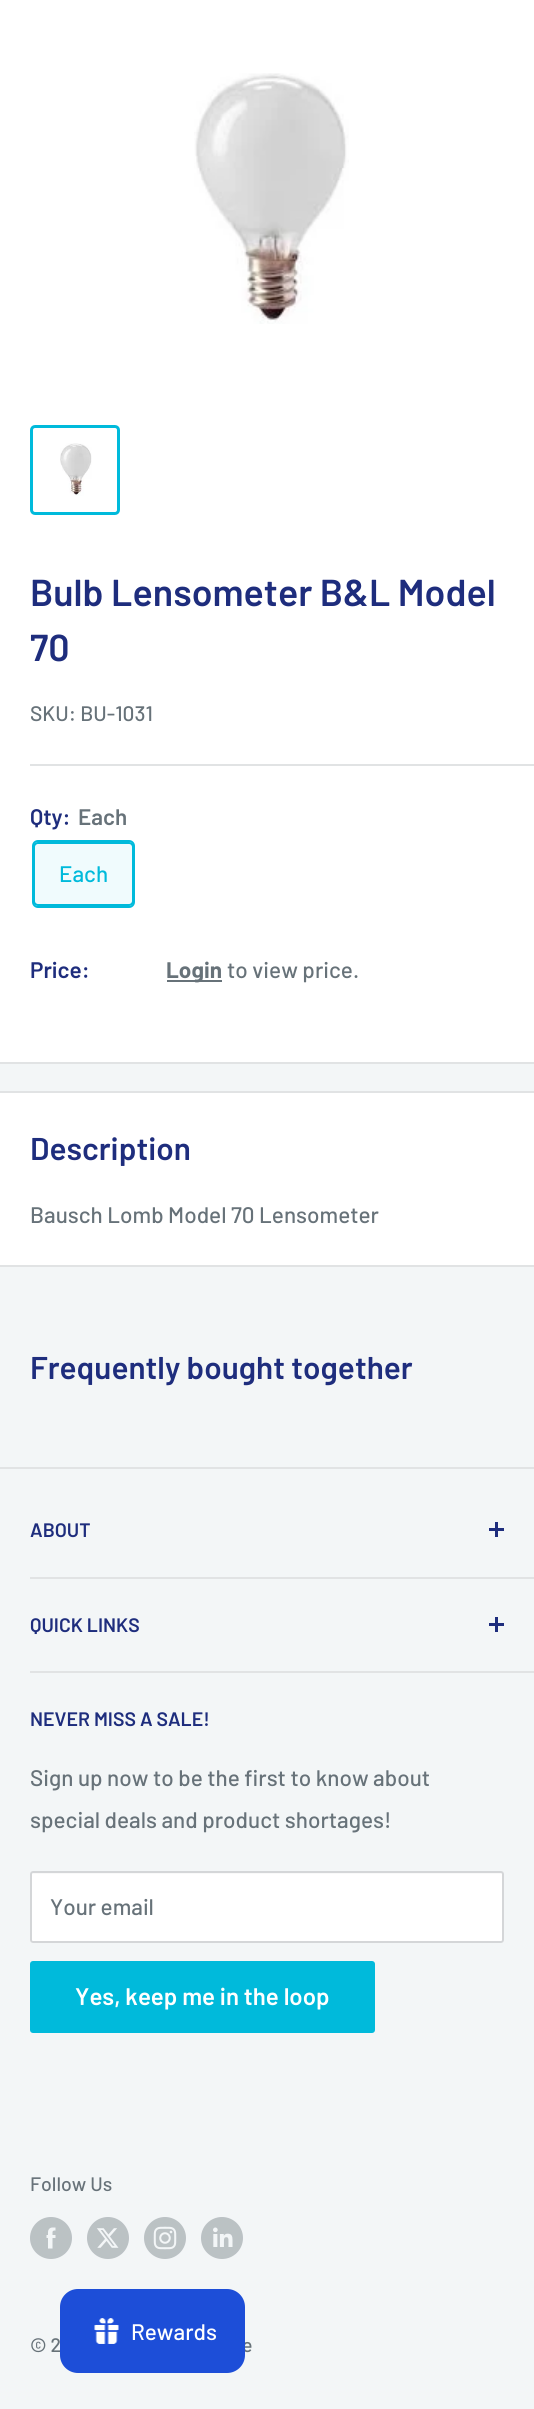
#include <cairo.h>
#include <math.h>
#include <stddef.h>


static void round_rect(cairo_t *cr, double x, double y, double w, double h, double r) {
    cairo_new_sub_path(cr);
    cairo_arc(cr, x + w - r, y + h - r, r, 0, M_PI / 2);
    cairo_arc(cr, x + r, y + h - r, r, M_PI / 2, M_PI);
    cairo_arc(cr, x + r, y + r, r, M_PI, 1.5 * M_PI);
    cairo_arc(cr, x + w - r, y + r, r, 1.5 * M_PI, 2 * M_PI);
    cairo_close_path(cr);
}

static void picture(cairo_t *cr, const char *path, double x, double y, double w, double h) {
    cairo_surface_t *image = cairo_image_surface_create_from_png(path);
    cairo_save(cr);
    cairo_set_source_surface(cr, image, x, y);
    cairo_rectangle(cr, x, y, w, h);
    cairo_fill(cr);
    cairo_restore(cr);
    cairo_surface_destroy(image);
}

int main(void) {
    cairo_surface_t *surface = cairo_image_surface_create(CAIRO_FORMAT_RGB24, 534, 2409);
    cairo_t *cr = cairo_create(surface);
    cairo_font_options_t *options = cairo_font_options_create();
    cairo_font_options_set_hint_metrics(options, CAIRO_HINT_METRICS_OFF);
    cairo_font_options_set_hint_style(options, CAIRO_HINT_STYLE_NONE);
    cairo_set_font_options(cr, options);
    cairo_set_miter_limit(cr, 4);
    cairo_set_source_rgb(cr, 0.953, 0.961, 0.965);
    cairo_paint(cr);
    cairo_set_source_rgb(cr, 1, 1, 1);
    cairo_rectangle(cr, 0, 0, 534, 1062);
    cairo_fill(cr);
    picture(cr, "img1.png", 194, 73, 155, 251);
    round_rect(cr, 31.5, 426.5, 87, 87, 3.5);
    cairo_set_source_rgb(cr, 0, 0.729, 0.859);
    cairo_set_line_width(cr, 3);
    cairo_stroke(cr);
    picture(cr, "img2.png", 60, 443, 32, 53);
    cairo_set_source_rgb(cr, 0.882, 0.89, 0.894);
    cairo_rectangle(cr, 0, 1062, 534, 2);
    cairo_fill(cr);
    cairo_select_font_face(cr, "Barlow SemiBold", CAIRO_FONT_SLANT_NORMAL, CAIRO_FONT_WEIGHT_NORMAL);
    cairo_set_font_size(cr, 37.5);
    cairo_set_source_rgb(cr, 0.118, 0.176, 0.49);
    cairo_move_to(cr, 30, 606);
    cairo_show_text(cr, "Bulb Lensometer B&L Model");
    cairo_move_to(cr, 30, 661);
    cairo_show_text(cr, "70");
    cairo_select_font_face(cr, "Barlow Medium", CAIRO_FONT_SLANT_NORMAL, CAIRO_FONT_WEIGHT_NORMAL);
    cairo_set_font_size(cr, 21);
    cairo_set_source_rgb(cr, 0.404, 0.447, 0.475);
    cairo_move_to(cr, 30, 721);
    cairo_show_text(cr, "SKU: BU-1031");
    cairo_set_source_rgb(cr, 0.882, 0.89, 0.894);
    cairo_rectangle(cr, 30, 764, 504, 2);
    cairo_fill(cr);
    cairo_select_font_face(cr, "Barlow SemiBold", CAIRO_FONT_SLANT_NORMAL, CAIRO_FONT_WEIGHT_NORMAL);
    cairo_set_font_size(cr, 22.5);
    cairo_set_source_rgb(cr, 0.118, 0.176, 0.49);
    cairo_move_to(cr, 30, 825);
    cairo_show_text(cr, "Qty:");
    cairo_set_source_rgb(cr, 0.404, 0.447, 0.475);
    cairo_move_to(cr, 78, 825);
    cairo_show_text(cr, "Each");
    round_rect(cr, 33, 841, 101, 66, 5);
    cairo_set_source_rgb(cr, 0, 0.729, 0.859);
    cairo_set_line_width(cr, 2);
    cairo_stroke(cr);
    cairo_set_source_rgba(cr, 0, 0.729, 0.859, 0.06);
    cairo_rectangle(cr, 33, 842, 101, 64);
    cairo_fill(cr);
    round_rect(cr, 34, 843, 99, 62, 4);
    cairo_set_source_rgb(cr, 0, 0.729, 0.859);
    cairo_stroke(cr);
    cairo_select_font_face(cr, "Barlow Medium", CAIRO_FONT_SLANT_NORMAL, CAIRO_FONT_WEIGHT_NORMAL);
    cairo_move_to(cr, 59, 882);
    cairo_show_text(cr, "Each");
    cairo_select_font_face(cr, "Barlow SemiBold", CAIRO_FONT_SLANT_NORMAL, CAIRO_FONT_WEIGHT_NORMAL);
    cairo_set_source_rgb(cr, 0.118, 0.176, 0.49);
    cairo_move_to(cr, 30, 978);
    cairo_show_text(cr, "Price:");
    cairo_set_source_rgb(cr, 0.404, 0.447, 0.475);
    cairo_rectangle(cr, 167, 980, 55, 2);
    cairo_fill(cr);
    cairo_select_font_face(cr, "Barlow", CAIRO_FONT_SLANT_NORMAL, CAIRO_FONT_WEIGHT_BOLD);
    cairo_move_to(cr, 166, 978);
    cairo_show_text(cr, "Login");
    cairo_select_font_face(cr, "Barlow Medium", CAIRO_FONT_SLANT_NORMAL, CAIRO_FONT_WEIGHT_NORMAL);
    cairo_move_to(cr, 227, 978);
    cairo_show_text(cr, "to view price.");
    cairo_set_source_rgb(cr, 1, 1, 1);
    cairo_rectangle(cr, 0, 1093, 534, 172);
    cairo_fill(cr);
    cairo_set_source_rgb(cr, 0.882, 0.89, 0.894);
    cairo_rectangle(cr, 0, 1091, 534, 2);
    cairo_fill(cr);
    cairo_rectangle(cr, 0, 1265, 534, 2);
    cairo_fill(cr);
    cairo_select_font_face(cr, "Barlow SemiBold", CAIRO_FONT_SLANT_NORMAL, CAIRO_FONT_WEIGHT_NORMAL);
    cairo_set_font_size(cr, 31.5);
    cairo_set_source_rgb(cr, 0.118, 0.176, 0.49);
    cairo_move_to(cr, 30, 1160);
    cairo_show_text(cr, "Description");
    cairo_select_font_face(cr, "Barlow Medium", CAIRO_FONT_SLANT_NORMAL, CAIRO_FONT_WEIGHT_NORMAL);
    cairo_set_font_size(cr, 22.5);
    cairo_set_source_rgb(cr, 0.404, 0.447, 0.475);
    cairo_move_to(cr, 30, 1223);
    cairo_show_text(cr, "Bausch Lomb Model 70 Lensometer");
    cairo_select_font_face(cr, "Barlow SemiBold", CAIRO_FONT_SLANT_NORMAL, CAIRO_FONT_WEIGHT_NORMAL);
    cairo_set_font_size(cr, 31.5);
    cairo_set_source_rgb(cr, 0.118, 0.176, 0.49);
    cairo_move_to(cr, 30, 1379);
    cairo_show_text(cr, "Frequently bought together");
    cairo_set_source_rgb(cr, 0.882, 0.89, 0.894);
    cairo_rectangle(cr, 0, 1467, 534, 2);
    cairo_fill(cr);
    cairo_rectangle(cr, 30, 1577, 504, 2);
    cairo_fill(cr);
    cairo_set_font_size(cr, 19.5);
    cairo_set_source_rgb(cr, 0.118, 0.176, 0.49);
    cairo_move_to(cr, 30, 1537);
    cairo_show_text(cr, "ABOUT");
    cairo_rectangle(cr, 495, 1522, 3, 15);
    cairo_fill(cr);
    cairo_rectangle(cr, 489, 1528, 15, 3);
    cairo_fill(cr);
    cairo_set_source_rgb(cr, 0.882, 0.89, 0.894);
    cairo_rectangle(cr, 30, 1671, 504, 2);
    cairo_fill(cr);
    cairo_set_source_rgb(cr, 0.118, 0.176, 0.49);
    cairo_move_to(cr, 30, 1632);
    cairo_show_text(cr, "QUICK LINKS");
    cairo_rectangle(cr, 495, 1617, 3, 15);
    cairo_fill(cr);
    cairo_rectangle(cr, 489, 1623, 15, 3);
    cairo_fill(cr);
    cairo_move_to(cr, 30, 1726);
    cairo_show_text(cr, "NEVER MISS A SALE!");
    cairo_select_font_face(cr, "Barlow Medium", CAIRO_FONT_SLANT_NORMAL, CAIRO_FONT_WEIGHT_NORMAL);
    cairo_set_font_size(cr, 22.5);
    cairo_set_source_rgb(cr, 0.404, 0.447, 0.475);
    cairo_move_to(cr, 30, 1786);
    cairo_show_text(cr, "Sign up now to be the first to know about");
    cairo_move_to(cr, 30, 1828);
    cairo_show_text(cr, "special deals and product shortages!");
    cairo_set_source_rgb(cr, 1, 1, 1);
    round_rect(cr, 30, 1871, 474, 72, 3);
    cairo_fill(cr);
    cairo_set_source_rgb(cr, 0.973, 0.973, 0.973);
    cairo_new_path(cr);
    cairo_move_to(cr, 33, 1874);
    cairo_line_to(cr, 501, 1874);
    cairo_curve_to(cr, 502, 1874, 502, 1874, 502, 1875);
    cairo_line_to(cr, 502, 1941);
    cairo_line_to(cr, 503, 1940);
    cairo_line_to(cr, 503, 1884);
    cairo_curve_to(cr, 503, 1882, 505, 1872, 502, 1872);
    cairo_line_to(cr, 34, 1872);
    cairo_line_to(cr, 32, 1873);
    cairo_line_to(cr, 32, 1875);
    cairo_curve_to(cr, 32, 1874, 32, 1874, 33, 1874);
    cairo_close_path(cr);
    cairo_fill(cr);
    round_rect(cr, 31, 1872, 472, 70, 2);
    cairo_set_source_rgb(cr, 0.831, 0.839, 0.847);
    cairo_stroke(cr);
    cairo_set_source_rgb(cr, 0.404, 0.447, 0.475);
    cairo_move_to(cr, 50, 1915);
    cairo_show_text(cr, "Your email");
    cairo_set_source_rgb(cr, 0, 0.729, 0.859);
    round_rect(cr, 30, 1961, 345, 72, 3);
    cairo_fill(cr);
    cairo_select_font_face(cr, "Barlow SemiBold", CAIRO_FONT_SLANT_NORMAL, CAIRO_FONT_WEIGHT_NORMAL);
    cairo_set_font_size(cr, 24);
    cairo_set_source_rgb(cr, 1, 1, 1);
    cairo_move_to(cr, 75, 2005);
    cairo_show_text(cr, "Yes, keep me in the loop");
    cairo_select_font_face(cr, "Barlow Medium", CAIRO_FONT_SLANT_NORMAL, CAIRO_FONT_WEIGHT_NORMAL);
    cairo_set_font_size(cr, 19.5);
    cairo_set_source_rgb(cr, 0.404, 0.447, 0.475);
    cairo_move_to(cr, 30, 2191);
    cairo_show_text(cr, "Follow Us");
    picture(cr, "img3.png", 30, 2217, 42, 42);
    picture(cr, "img4.png", 87, 2217, 42, 42);
    picture(cr, "img5.png", 144, 2217, 42, 42);
    picture(cr, "img6.png", 201, 2217, 42, 42);
    cairo_move_to(cr, 30, 2352);
    cairo_show_text(cr, "© 2");
    cairo_move_to(cr, 242, 2352);
    cairo_show_text(cr, "e");
    cairo_set_source_rgb(cr, 0.114, 0.306, 0.847);
    round_rect(cr, 60, 2289, 185, 84, 18);
    cairo_fill(cr);
    picture(cr, "img7.png", 94, 2318, 25, 26);
    cairo_set_font_size(cr, 22.5);
    cairo_set_source_rgb(cr, 1, 1, 1);
    cairo_move_to(cr, 131, 2340);
    cairo_show_text(cr, "Rewards");
    cairo_surface_write_to_png(surface, "page.png");
    cairo_font_options_destroy(options);
    cairo_destroy(cr);
    cairo_surface_destroy(surface);
    return 0;
}
